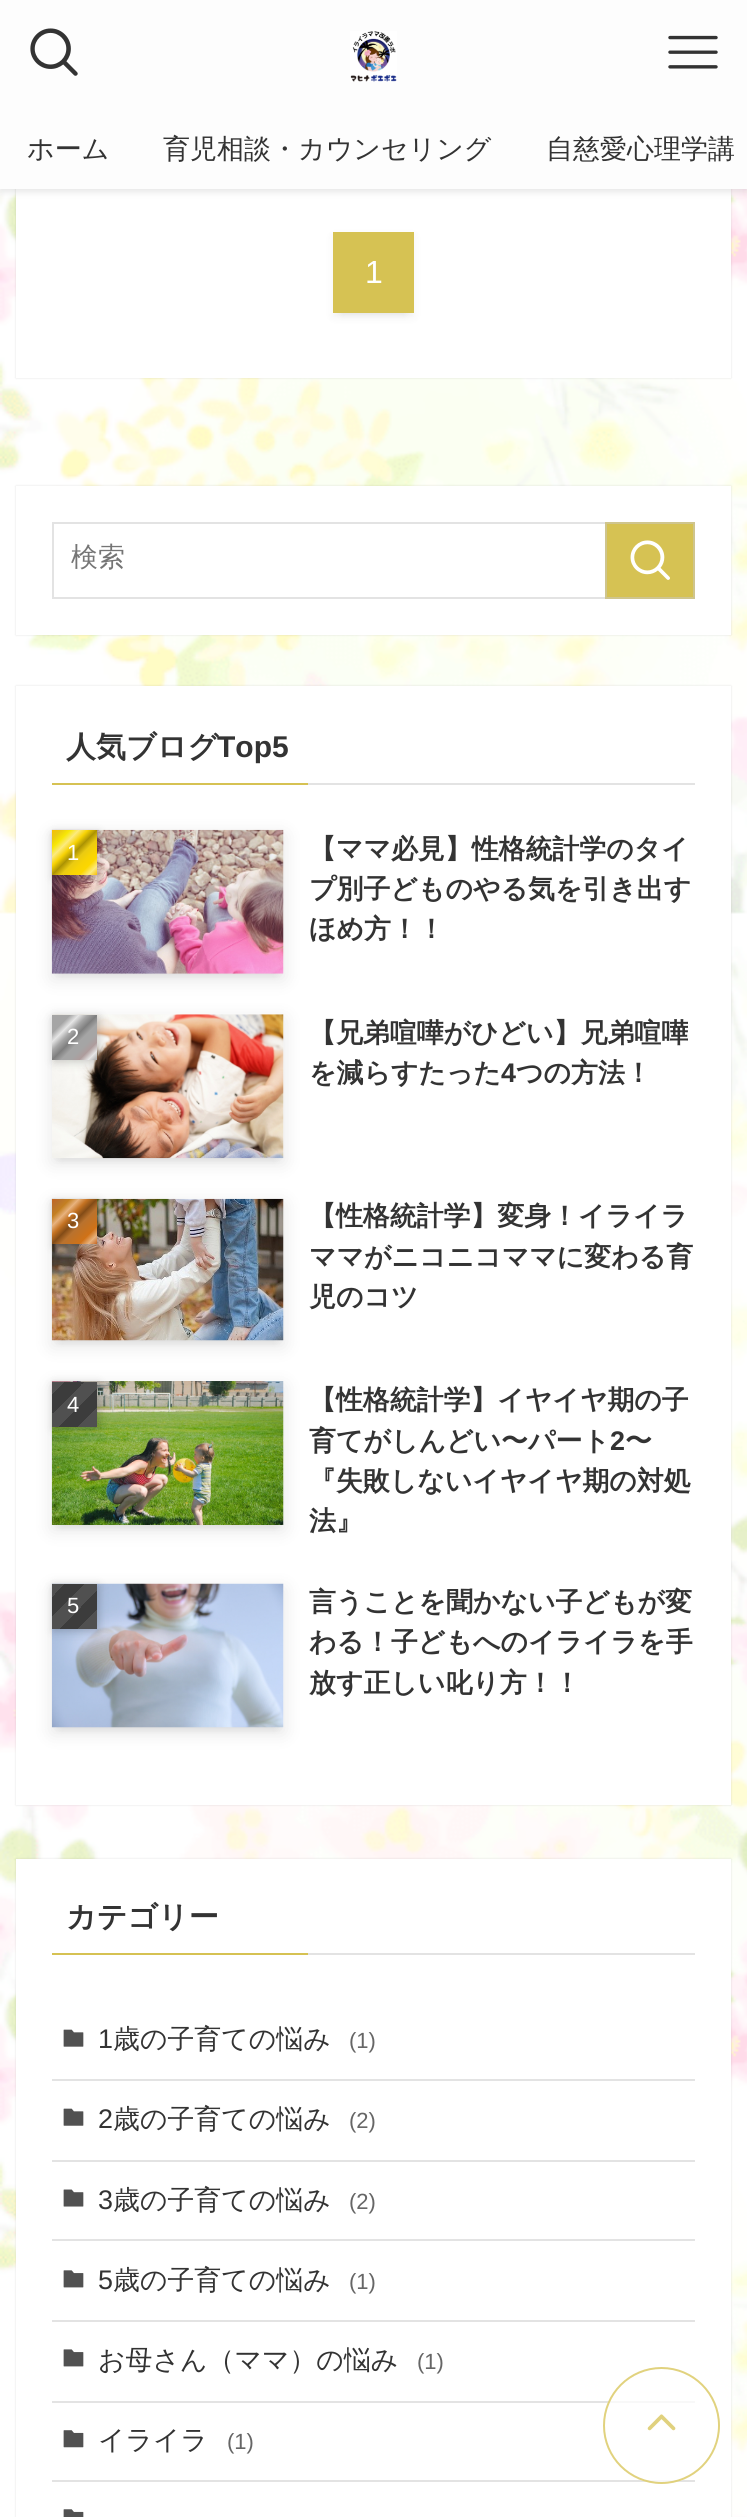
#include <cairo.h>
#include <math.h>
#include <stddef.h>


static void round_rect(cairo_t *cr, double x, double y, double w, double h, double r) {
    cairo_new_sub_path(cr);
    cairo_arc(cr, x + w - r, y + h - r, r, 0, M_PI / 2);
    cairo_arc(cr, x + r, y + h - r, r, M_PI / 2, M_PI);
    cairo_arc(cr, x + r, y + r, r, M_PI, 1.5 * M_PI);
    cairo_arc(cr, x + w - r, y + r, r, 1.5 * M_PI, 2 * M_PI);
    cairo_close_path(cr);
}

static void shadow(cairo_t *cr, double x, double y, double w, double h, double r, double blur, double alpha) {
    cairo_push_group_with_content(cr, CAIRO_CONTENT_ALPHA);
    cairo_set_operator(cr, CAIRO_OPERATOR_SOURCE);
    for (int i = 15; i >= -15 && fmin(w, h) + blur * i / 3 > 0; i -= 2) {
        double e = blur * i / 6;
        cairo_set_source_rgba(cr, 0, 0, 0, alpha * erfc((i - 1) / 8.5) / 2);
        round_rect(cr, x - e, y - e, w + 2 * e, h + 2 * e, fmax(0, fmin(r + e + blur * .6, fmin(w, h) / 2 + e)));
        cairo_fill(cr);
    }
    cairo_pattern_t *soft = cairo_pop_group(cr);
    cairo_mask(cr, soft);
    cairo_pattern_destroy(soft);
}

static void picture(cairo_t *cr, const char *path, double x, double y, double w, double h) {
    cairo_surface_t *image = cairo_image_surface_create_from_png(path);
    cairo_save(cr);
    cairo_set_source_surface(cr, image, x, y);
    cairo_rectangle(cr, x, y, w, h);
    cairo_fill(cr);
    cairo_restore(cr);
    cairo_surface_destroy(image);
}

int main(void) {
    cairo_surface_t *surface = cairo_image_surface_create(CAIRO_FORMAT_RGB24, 747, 2517);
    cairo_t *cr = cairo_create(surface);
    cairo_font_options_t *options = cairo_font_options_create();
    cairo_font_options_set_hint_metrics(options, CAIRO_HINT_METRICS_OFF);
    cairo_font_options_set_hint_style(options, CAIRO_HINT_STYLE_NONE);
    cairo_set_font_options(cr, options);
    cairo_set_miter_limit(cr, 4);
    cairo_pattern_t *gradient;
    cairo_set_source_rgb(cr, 1, 1, 1);
    cairo_paint(cr);
    picture(cr, "img1.png", 0, 189, 747, 2328);
    cairo_set_source_rgb(cr, 0, 0, 0);
    shadow(cr, 16, -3, 715, 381, 0, 1, 0.12);
    cairo_set_source_rgb(cr, 1, 1, 1);
    cairo_rectangle(cr, 16, 189, 715, 189);
    cairo_fill(cr);
    cairo_set_source_rgb(cr, 0, 0, 0);
    shadow(cr, 0, 2, 747, 189, 0, 4.5, 0.12);
    cairo_set_source_rgb(cr, 0.992, 0.992, 0.992);
    cairo_rectangle(cr, 0, 0, 747, 189);
    cairo_fill(cr);
    picture(cr, "img2.png", 30, 28, 48, 48);
    picture(cr, "img3.png", 350, 31, 47, 51);
    picture(cr, "img4.png", 668, 35, 50, 34);
    cairo_select_font_face(cr, "WenQuanYi Zen Hei Medium", CAIRO_FONT_SLANT_NORMAL, CAIRO_FONT_WEIGHT_NORMAL);
    cairo_set_font_size(cr, 27);
    cairo_set_source_rgb(cr, 0.2, 0.2, 0.2);
    cairo_move_to(cr, 27, 158);
    cairo_show_text(cr, "ホーム");
    cairo_move_to(cr, 163, 158);
    cairo_show_text(cr, "育児相談・カウンセリング");
    cairo_move_to(cr, 546, 158);
    cairo_show_text(cr, "自慈愛心理学講");
    cairo_set_source_rgb(cr, 0, 0, 0);
    shadow(cr, 342, 250, 63, 63, 0, 4.5, 0.1);
    shadow(cr, 333, 236, 81, 81, 0, 4.5, 0.05);
    cairo_set_source_rgb(cr, 0.839, 0.761, 0.325);
    cairo_rectangle(cr, 333, 232, 81, 81);
    cairo_fill(cr);
    cairo_select_font_face(cr, "Liberation Sans", CAIRO_FONT_SLANT_NORMAL, CAIRO_FONT_WEIGHT_NORMAL);
    cairo_set_font_size(cr, 32);
    cairo_set_source_rgb(cr, 1, 1, 1);
    cairo_move_to(cr, 365, 283);
    cairo_show_text(cr, "1");
    cairo_set_source_rgb(cr, 0, 0, 0);
    shadow(cr, 16, 486, 715, 149, 0, 1, 0.12);
    cairo_set_source_rgb(cr, 1, 1, 1);
    cairo_rectangle(cr, 16, 486, 715, 149);
    cairo_fill(cr);
    cairo_rectangle(cr, 53, 523, 641, 75);
    cairo_set_source_rgb(cr, 0.89, 0.89, 0.89);
    cairo_stroke(cr);
    cairo_select_font_face(cr, "WenQuanYi Zen Hei Medium", CAIRO_FONT_SLANT_NORMAL, CAIRO_FONT_WEIGHT_NORMAL);
    cairo_set_font_size(cr, 26.9);
    cairo_set_source_rgb(cr, 0.459, 0.459, 0.459);
    cairo_move_to(cr, 71, 566);
    cairo_show_text(cr, "検索");
    cairo_set_source_rgb(cr, 0.839, 0.761, 0.325);
    cairo_rectangle(cr, 606, 523, 88, 75);
    cairo_fill_preserve(cr);
    cairo_set_source_rgb(cr, 0.812, 0.773, 0.553);
    cairo_stroke(cr);
    picture(cr, "img5.png", 630, 540, 40, 40);
    cairo_set_source_rgb(cr, 0, 0, 0);
    shadow(cr, 16, 686, 715, 1119, 0, 1, 0.12);
    cairo_set_source_rgb(cr, 1, 1, 1);
    cairo_rectangle(cr, 16, 686, 715, 1119);
    cairo_fill(cr);
    cairo_select_font_face(cr, "WenQuanYi Zen Hei", CAIRO_FONT_SLANT_NORMAL, CAIRO_FONT_WEIGHT_BOLD);
    cairo_set_font_size(cr, 30);
    cairo_set_source_rgb(cr, 0.2, 0.2, 0.2);
    cairo_move_to(cr, 66, 757);
    cairo_show_text(cr, "人気ブログ");
    cairo_select_font_face(cr, "Liberation Sans", CAIRO_FONT_SLANT_NORMAL, CAIRO_FONT_WEIGHT_BOLD);
    cairo_move_to(cr, 217, 757);
    cairo_show_text(cr, "Top5");
    cairo_set_source_rgb(cr, 0.839, 0.761, 0.325);
    cairo_rectangle(cr, 52, 783, 256, 2);
    cairo_fill(cr);
    cairo_set_source_rgb(cr, 0.89, 0.89, 0.89);
    cairo_rectangle(cr, 308, 783, 387, 2);
    cairo_fill(cr);
    cairo_set_source_rgb(cr, 0, 0, 0);
    shadow(cr, 61, 848, 214, 126, 0, 4.5, 0.1);
    shadow(cr, 52, 835, 232, 144, 0, 9, 0.1);
    picture(cr, "img6.png", 51, 829, 233, 145);
    shadow(cr, 54, 833, 45, 45, 0, 4.5, 0.2);
    gradient = cairo_pattern_create_linear(97, 875, 52, 830);
    cairo_pattern_add_color_stop_rgba(gradient, 0, 0.969, 0.749, 0.02, 1);
    cairo_pattern_add_color_stop_rgba(gradient, 0.1, 0.988, 0.918, 0.498, 1);
    cairo_pattern_add_color_stop_rgba(gradient, 0.2, 0.988, 0.843, 0, 1);
    cairo_pattern_add_color_stop_rgba(gradient, 0.3, 0.969, 0.827, 0.02, 1);
    cairo_pattern_add_color_stop_rgba(gradient, 0.4, 0.918, 0.792, 0.071, 1);
    cairo_pattern_add_color_stop_rgba(gradient, 0.5, 0.675, 0.576, 0.012, 1);
    cairo_pattern_add_color_stop_rgba(gradient, 0.6, 0.969, 0.827, 0.02, 1);
    cairo_pattern_add_color_stop_rgba(gradient, 0.7, 0.988, 0.918, 0.498, 1);
    cairo_pattern_add_color_stop_rgba(gradient, 0.8, 0.969, 0.906, 0.02, 1);
    cairo_pattern_add_color_stop_rgba(gradient, 0.9, 0.918, 0.792, 0.071, 1);
    cairo_pattern_add_color_stop_rgba(gradient, 1, 0.969, 0.749, 0.02, 1);
    cairo_set_source(cr, gradient);
    cairo_pattern_destroy(gradient);
    cairo_rectangle(cr, 52, 830, 45, 45);
    cairo_fill(cr);
    cairo_select_font_face(cr, "Liberation Sans", CAIRO_FONT_SLANT_NORMAL, CAIRO_FONT_WEIGHT_NORMAL);
    cairo_set_font_size(cr, 22);
    cairo_set_source_rgb(cr, 1, 1, 1);
    cairo_move_to(cr, 67, 860);
    cairo_show_text(cr, "1");
    cairo_select_font_face(cr, "WenQuanYi Zen Hei", CAIRO_FONT_SLANT_NORMAL, CAIRO_FONT_WEIGHT_BOLD);
    cairo_set_font_size(cr, 26.9);
    cairo_set_source_rgb(cr, 0.2, 0.2, 0.2);
    cairo_move_to(cr, 309, 858);
    cairo_show_text(cr, "【ママ必見】性格統計学のタイ");
    cairo_move_to(cr, 309, 898);
    cairo_show_text(cr, "プ別子どものやる気を引き出す");
    cairo_move_to(cr, 309, 938);
    cairo_show_text(cr, "ほめ方！！");
    cairo_set_source_rgb(cr, 0, 0, 0);
    shadow(cr, 61, 1033, 214, 126, 0, 4.5, 0.1);
    shadow(cr, 52, 1019, 232, 144, 0, 9, 0.1);
    picture(cr, "img7.png", 52, 1014, 232, 145);
    shadow(cr, 54, 1017, 45, 45, 0, 4.5, 0.2);
    gradient = cairo_pattern_create_linear(97, 1060, 52, 1015);
    cairo_pattern_add_color_stop_rgba(gradient, 0, 0.647, 0.647, 0.647, 1);
    cairo_pattern_add_color_stop_rgba(gradient, 0.1, 0.898, 0.898, 0.898, 1);
    cairo_pattern_add_color_stop_rgba(gradient, 0.2, 0.682, 0.612, 0.612, 1);
    cairo_pattern_add_color_stop_rgba(gradient, 0.3, 0.647, 0.647, 0.647, 1);
    cairo_pattern_add_color_stop_rgba(gradient, 0.4, 0.647, 0.647, 0.647, 1);
    cairo_pattern_add_color_stop_rgba(gradient, 0.5, 0.498, 0.498, 0.498, 1);
    cairo_pattern_add_color_stop_rgba(gradient, 0.6, 0.647, 0.647, 0.647, 1);
    cairo_pattern_add_color_stop_rgba(gradient, 0.7, 0.898, 0.898, 0.898, 1);
    cairo_pattern_add_color_stop_rgba(gradient, 0.8, 0.647, 0.647, 0.647, 1);
    cairo_pattern_add_color_stop_rgba(gradient, 1, 0.647, 0.647, 0.647, 1);
    cairo_set_source(cr, gradient);
    cairo_pattern_destroy(gradient);
    cairo_rectangle(cr, 52, 1015, 45, 45);
    cairo_fill(cr);
    cairo_select_font_face(cr, "Liberation Sans", CAIRO_FONT_SLANT_NORMAL, CAIRO_FONT_WEIGHT_NORMAL);
    cairo_set_font_size(cr, 22);
    cairo_set_source_rgb(cr, 1, 1, 1);
    cairo_move_to(cr, 67, 1044);
    cairo_show_text(cr, "2");
    cairo_select_font_face(cr, "WenQuanYi Zen Hei", CAIRO_FONT_SLANT_NORMAL, CAIRO_FONT_WEIGHT_BOLD);
    cairo_set_font_size(cr, 26.9);
    cairo_set_source_rgb(cr, 0.2, 0.2, 0.2);
    cairo_move_to(cr, 309, 1042);
    cairo_show_text(cr, "【兄弟喧嘩がひどい】兄弟喧嘩");
    cairo_move_to(cr, 309, 1082);
    cairo_show_text(cr, "を減らすたった");
    cairo_select_font_face(cr, "Liberation Sans", CAIRO_FONT_SLANT_NORMAL, CAIRO_FONT_WEIGHT_BOLD);
    cairo_move_to(cr, 501, 1082);
    cairo_show_text(cr, "4");
    cairo_select_font_face(cr, "WenQuanYi Zen Hei", CAIRO_FONT_SLANT_NORMAL, CAIRO_FONT_WEIGHT_BOLD);
    cairo_move_to(cr, 516, 1082);
    cairo_show_text(cr, "つの方法！");
    cairo_set_source_rgb(cr, 0, 0, 0);
    shadow(cr, 61, 1217, 214, 124, 0, 4.5, 0.1);
    shadow(cr, 52, 1204, 232, 142, 0, 9, 0.1);
    picture(cr, "img8.png", 51, 1198, 233, 143);
    shadow(cr, 54, 1202, 45, 45, 0, 4.5, 0.2);
    gradient = cairo_pattern_create_linear(97, 1244, 52, 1199);
    cairo_pattern_add_color_stop_rgba(gradient, 0, 0.769, 0.396, 0.133, 1);
    cairo_pattern_add_color_stop_rgba(gradient, 0.1, 0.91, 0.698, 0.49, 1);
    cairo_pattern_add_color_stop_rgba(gradient, 0.2, 0.816, 0.447, 0.09, 1);
    cairo_pattern_add_color_stop_rgba(gradient, 0.3, 0.769, 0.447, 0.133, 1);
    cairo_pattern_add_color_stop_rgba(gradient, 0.4, 0.725, 0.447, 0.18, 1);
    cairo_pattern_add_color_stop_rgba(gradient, 0.5, 0.514, 0.298, 0.09, 1);
    cairo_pattern_add_color_stop_rgba(gradient, 0.6, 0.769, 0.447, 0.133, 1);
    cairo_pattern_add_color_stop_rgba(gradient, 0.7, 0.91, 0.698, 0.49, 1);
    cairo_pattern_add_color_stop_rgba(gradient, 0.8, 0.769, 0.502, 0.133, 1);
    cairo_pattern_add_color_stop_rgba(gradient, 0.9, 0.725, 0.447, 0.18, 1);
    cairo_pattern_add_color_stop_rgba(gradient, 1, 0.769, 0.396, 0.133, 1);
    cairo_set_source(cr, gradient);
    cairo_pattern_destroy(gradient);
    cairo_rectangle(cr, 52, 1199, 45, 45);
    cairo_fill(cr);
    cairo_select_font_face(cr, "Liberation Sans", CAIRO_FONT_SLANT_NORMAL, CAIRO_FONT_WEIGHT_NORMAL);
    cairo_set_font_size(cr, 22);
    cairo_set_source_rgb(cr, 1, 1, 1);
    cairo_move_to(cr, 67, 1228);
    cairo_show_text(cr, "3");
    cairo_select_font_face(cr, "WenQuanYi Zen Hei", CAIRO_FONT_SLANT_NORMAL, CAIRO_FONT_WEIGHT_BOLD);
    cairo_set_font_size(cr, 26.9);
    cairo_set_source_rgb(cr, 0.2, 0.2, 0.2);
    cairo_move_to(cr, 309, 1225);
    cairo_show_text(cr, "【性格統計学】変身！イライラ");
    cairo_move_to(cr, 309, 1266);
    cairo_show_text(cr, "ママがニコニコママに変わる育");
    cairo_move_to(cr, 309, 1306);
    cairo_show_text(cr, "児のコツ");
    cairo_set_source_rgb(cr, 0, 0, 0);
    shadow(cr, 61, 1400, 214, 126, 0, 4.5, 0.1);
    shadow(cr, 52, 1386, 232, 144, 0, 9, 0.1);
    picture(cr, "img9.png", 51, 1381, 233, 144);
    shadow(cr, 54, 1384, 45, 45, 0, 4.5, 0.2);
    gradient = cairo_pattern_create_linear(97, 1427, 39, 1369);
    cairo_pattern_add_color_stop_rgba(gradient, 0, 0.314, 0.314, 0.314, 1);
    cairo_pattern_add_color_stop_rgba(gradient, 0.17, 0.314, 0.314, 0.314, 1);
    cairo_pattern_add_color_stop_rgba(gradient, 0.17, 0.235, 0.235, 0.235, 1);
    cairo_pattern_add_color_stop_rgba(gradient, 0.33, 0.235, 0.235, 0.235, 1);
    cairo_pattern_add_color_stop_rgba(gradient, 0.33, 0.314, 0.314, 0.314, 1);
    cairo_pattern_add_color_stop_rgba(gradient, 0.5, 0.314, 0.314, 0.314, 1);
    cairo_pattern_add_color_stop_rgba(gradient, 0.5, 0.235, 0.235, 0.235, 1);
    cairo_pattern_add_color_stop_rgba(gradient, 0.67, 0.235, 0.235, 0.235, 1);
    cairo_pattern_add_color_stop_rgba(gradient, 0.67, 0.314, 0.314, 0.314, 1);
    cairo_pattern_add_color_stop_rgba(gradient, 0.83, 0.314, 0.314, 0.314, 1);
    cairo_pattern_add_color_stop_rgba(gradient, 0.83, 0.235, 0.235, 0.235, 1);
    cairo_pattern_add_color_stop_rgba(gradient, 1, 0.235, 0.235, 0.235, 1);
    cairo_set_source(cr, gradient);
    cairo_pattern_destroy(gradient);
    cairo_rectangle(cr, 52, 1382, 45, 45);
    cairo_fill(cr);
    cairo_select_font_face(cr, "Liberation Sans", CAIRO_FONT_SLANT_NORMAL, CAIRO_FONT_WEIGHT_NORMAL);
    cairo_set_font_size(cr, 22);
    cairo_set_source_rgb(cr, 1, 1, 1);
    cairo_move_to(cr, 67, 1412);
    cairo_show_text(cr, "4");
    cairo_select_font_face(cr, "WenQuanYi Zen Hei", CAIRO_FONT_SLANT_NORMAL, CAIRO_FONT_WEIGHT_BOLD);
    cairo_set_font_size(cr, 26.9);
    cairo_set_source_rgb(cr, 0.2, 0.2, 0.2);
    cairo_move_to(cr, 309, 1409);
    cairo_show_text(cr, "【性格統計学】イヤイヤ期の子");
    cairo_move_to(cr, 309, 1450);
    cairo_show_text(cr, "育てがしんどい〜パート");
    cairo_select_font_face(cr, "Liberation Sans", CAIRO_FONT_SLANT_NORMAL, CAIRO_FONT_WEIGHT_BOLD);
    cairo_move_to(cr, 610, 1450);
    cairo_show_text(cr, "2");
    cairo_select_font_face(cr, "WenQuanYi Zen Hei", CAIRO_FONT_SLANT_NORMAL, CAIRO_FONT_WEIGHT_BOLD);
    cairo_move_to(cr, 625, 1450);
    cairo_show_text(cr, "〜");
    cairo_move_to(cr, 309, 1490);
    cairo_show_text(cr, "『失敗しないイヤイヤ期の対処");
    cairo_move_to(cr, 309, 1530);
    cairo_show_text(cr, "法』");
    cairo_set_source_rgb(cr, 0, 0, 0);
    shadow(cr, 61, 1602, 214, 126, 0, 4.5, 0.1);
    shadow(cr, 52, 1589, 232, 144, 0, 9, 0.1);
    picture(cr, "img10.png", 51, 1583, 233, 145);
    shadow(cr, 54, 1586, 45, 45, 0, 4.5, 0.2);
    gradient = cairo_pattern_create_linear(97, 1629, 39, 1572);
    cairo_pattern_add_color_stop_rgba(gradient, 0, 0.314, 0.314, 0.314, 1);
    cairo_pattern_add_color_stop_rgba(gradient, 0.17, 0.314, 0.314, 0.314, 1);
    cairo_pattern_add_color_stop_rgba(gradient, 0.17, 0.235, 0.235, 0.235, 1);
    cairo_pattern_add_color_stop_rgba(gradient, 0.33, 0.235, 0.235, 0.235, 1);
    cairo_pattern_add_color_stop_rgba(gradient, 0.33, 0.314, 0.314, 0.314, 1);
    cairo_pattern_add_color_stop_rgba(gradient, 0.5, 0.314, 0.314, 0.314, 1);
    cairo_pattern_add_color_stop_rgba(gradient, 0.5, 0.235, 0.235, 0.235, 1);
    cairo_pattern_add_color_stop_rgba(gradient, 0.67, 0.235, 0.235, 0.235, 1);
    cairo_pattern_add_color_stop_rgba(gradient, 0.67, 0.314, 0.314, 0.314, 1);
    cairo_pattern_add_color_stop_rgba(gradient, 0.83, 0.314, 0.314, 0.314, 1);
    cairo_pattern_add_color_stop_rgba(gradient, 0.83, 0.235, 0.235, 0.235, 1);
    cairo_pattern_add_color_stop_rgba(gradient, 1, 0.235, 0.235, 0.235, 1);
    cairo_set_source(cr, gradient);
    cairo_pattern_destroy(gradient);
    cairo_rectangle(cr, 52, 1584, 45, 45);
    cairo_fill(cr);
    cairo_select_font_face(cr, "Liberation Sans", CAIRO_FONT_SLANT_NORMAL, CAIRO_FONT_WEIGHT_NORMAL);
    cairo_set_font_size(cr, 22);
    cairo_set_source_rgb(cr, 1, 1, 1);
    cairo_move_to(cr, 67, 1613);
    cairo_show_text(cr, "5");
    cairo_select_font_face(cr, "WenQuanYi Zen Hei", CAIRO_FONT_SLANT_NORMAL, CAIRO_FONT_WEIGHT_BOLD);
    cairo_set_font_size(cr, 26.9);
    cairo_set_source_rgb(cr, 0.2, 0.2, 0.2);
    cairo_move_to(cr, 309, 1611);
    cairo_show_text(cr, "言うことを聞かない子どもが変");
    cairo_move_to(cr, 309, 1651);
    cairo_show_text(cr, "わる！子どもへのイライラを手");
    cairo_move_to(cr, 309, 1692);
    cairo_show_text(cr, "放す正しい叱り方！！");
    cairo_set_source_rgb(cr, 0, 0, 0);
    shadow(cr, 16, 1859, 715, 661, 0, 1, 0.12);
    cairo_set_source_rgb(cr, 1, 1, 1);
    cairo_rectangle(cr, 16, 1859, 715, 658);
    cairo_fill(cr);
    cairo_set_font_size(cr, 30);
    cairo_set_source_rgb(cr, 0.2, 0.2, 0.2);
    cairo_move_to(cr, 66, 1927);
    cairo_show_text(cr, "カテゴリー");
    cairo_set_source_rgb(cr, 0.839, 0.761, 0.325);
    cairo_rectangle(cr, 52, 1953, 256, 2);
    cairo_fill(cr);
    cairo_set_source_rgb(cr, 0.89, 0.89, 0.89);
    cairo_rectangle(cr, 308, 1953, 387, 2);
    cairo_fill(cr);
    cairo_rectangle(cr, 52, 2079, 643, 2);
    cairo_fill(cr);
    picture(cr, "img11.png", 63, 2029, 21, 18);
    cairo_select_font_face(cr, "Liberation Sans", CAIRO_FONT_SLANT_NORMAL, CAIRO_FONT_WEIGHT_NORMAL);
    cairo_set_font_size(cr, 26.9);
    cairo_set_source_rgb(cr, 0.2, 0.2, 0.2);
    cairo_move_to(cr, 98, 2048);
    cairo_show_text(cr, "1");
    cairo_select_font_face(cr, "WenQuanYi Zen Hei Medium", CAIRO_FONT_SLANT_NORMAL, CAIRO_FONT_WEIGHT_NORMAL);
    cairo_move_to(cr, 113, 2048);
    cairo_show_text(cr, "歳の子育ての悩み");
    cairo_select_font_face(cr, "Liberation Sans", CAIRO_FONT_SLANT_NORMAL, CAIRO_FONT_WEIGHT_NORMAL);
    cairo_set_font_size(cr, 22);
    cairo_set_source_rgb(cr, 0.4, 0.4, 0.4);
    cairo_move_to(cr, 349, 2048);
    cairo_show_text(cr, "(1)");
    cairo_set_source_rgb(cr, 0.89, 0.89, 0.89);
    cairo_rectangle(cr, 52, 2160, 643, 2);
    cairo_fill(cr);
    picture(cr, "img12.png", 63, 2108, 21, 18);
    cairo_set_font_size(cr, 26.9);
    cairo_set_source_rgb(cr, 0.2, 0.2, 0.2);
    cairo_move_to(cr, 98, 2128);
    cairo_show_text(cr, "2");
    cairo_select_font_face(cr, "WenQuanYi Zen Hei Medium", CAIRO_FONT_SLANT_NORMAL, CAIRO_FONT_WEIGHT_NORMAL);
    cairo_move_to(cr, 113, 2128);
    cairo_show_text(cr, "歳の子育ての悩み");
    cairo_select_font_face(cr, "Liberation Sans", CAIRO_FONT_SLANT_NORMAL, CAIRO_FONT_WEIGHT_NORMAL);
    cairo_set_font_size(cr, 22);
    cairo_set_source_rgb(cr, 0.4, 0.4, 0.4);
    cairo_move_to(cr, 349, 2128);
    cairo_show_text(cr, "(2)");
    cairo_set_source_rgb(cr, 0.89, 0.89, 0.89);
    cairo_rectangle(cr, 52, 2239, 643, 2);
    cairo_fill(cr);
    picture(cr, "img13.png", 63, 2189, 21, 18);
    cairo_set_font_size(cr, 26.9);
    cairo_set_source_rgb(cr, 0.2, 0.2, 0.2);
    cairo_move_to(cr, 98, 2209);
    cairo_show_text(cr, "3");
    cairo_select_font_face(cr, "WenQuanYi Zen Hei Medium", CAIRO_FONT_SLANT_NORMAL, CAIRO_FONT_WEIGHT_NORMAL);
    cairo_move_to(cr, 113, 2209);
    cairo_show_text(cr, "歳の子育ての悩み");
    cairo_select_font_face(cr, "Liberation Sans", CAIRO_FONT_SLANT_NORMAL, CAIRO_FONT_WEIGHT_NORMAL);
    cairo_set_font_size(cr, 22);
    cairo_set_source_rgb(cr, 0.4, 0.4, 0.4);
    cairo_move_to(cr, 349, 2209);
    cairo_show_text(cr, "(2)");
    cairo_set_source_rgb(cr, 0.89, 0.89, 0.89);
    cairo_rectangle(cr, 52, 2320, 643, 2);
    cairo_fill(cr);
    picture(cr, "img14.png", 63, 2270, 21, 18);
    cairo_set_font_size(cr, 26.9);
    cairo_set_source_rgb(cr, 0.2, 0.2, 0.2);
    cairo_move_to(cr, 98, 2289);
    cairo_show_text(cr, "5");
    cairo_select_font_face(cr, "WenQuanYi Zen Hei Medium", CAIRO_FONT_SLANT_NORMAL, CAIRO_FONT_WEIGHT_NORMAL);
    cairo_move_to(cr, 113, 2289);
    cairo_show_text(cr, "歳の子育ての悩み");
    cairo_select_font_face(cr, "Liberation Sans", CAIRO_FONT_SLANT_NORMAL, CAIRO_FONT_WEIGHT_NORMAL);
    cairo_set_font_size(cr, 22);
    cairo_set_source_rgb(cr, 0.4, 0.4, 0.4);
    cairo_move_to(cr, 349, 2289);
    cairo_show_text(cr, "(1)");
    cairo_set_source_rgb(cr, 0.89, 0.89, 0.89);
    cairo_rectangle(cr, 52, 2401, 643, 2);
    cairo_fill(cr);
    picture(cr, "img15.png", 63, 2349, 21, 18);
    cairo_select_font_face(cr, "WenQuanYi Zen Hei Medium", CAIRO_FONT_SLANT_NORMAL, CAIRO_FONT_WEIGHT_NORMAL);
    cairo_set_font_size(cr, 26.9);
    cairo_set_source_rgb(cr, 0.2, 0.2, 0.2);
    cairo_move_to(cr, 98, 2369);
    cairo_show_text(cr, "お母さん（ママ）の悩み");
    cairo_select_font_face(cr, "Liberation Sans", CAIRO_FONT_SLANT_NORMAL, CAIRO_FONT_WEIGHT_NORMAL);
    cairo_set_font_size(cr, 22);
    cairo_set_source_rgb(cr, 0.4, 0.4, 0.4);
    cairo_move_to(cr, 417, 2369);
    cairo_show_text(cr, "(1)");
    cairo_set_source_rgb(cr, 0.89, 0.89, 0.89);
    cairo_rectangle(cr, 52, 2480, 643, 2);
    cairo_fill(cr);
    picture(cr, "img16.png", 63, 2430, 21, 18);
    cairo_select_font_face(cr, "WenQuanYi Zen Hei Medium", CAIRO_FONT_SLANT_NORMAL, CAIRO_FONT_WEIGHT_NORMAL);
    cairo_set_font_size(cr, 26.9);
    cairo_set_source_rgb(cr, 0.2, 0.2, 0.2);
    cairo_move_to(cr, 98, 2449);
    cairo_show_text(cr, "イライラ");
    cairo_select_font_face(cr, "Liberation Sans", CAIRO_FONT_SLANT_NORMAL, CAIRO_FONT_WEIGHT_NORMAL);
    cairo_set_font_size(cr, 22);
    cairo_set_source_rgb(cr, 0.4, 0.4, 0.4);
    cairo_move_to(cr, 227, 2449);
    cairo_show_text(cr, "(1)");
    picture(cr, "img17.png", 63, 2509, 21, 8);
    cairo_set_source_rgba(cr, 1, 1, 1, 0.75);
    cairo_arc(cr, 661.5, 2425.5, 58.5, 0, 2 * M_PI);
    cairo_fill(cr);
    cairo_arc(cr, 661.5, 2425.5, 57.5, 0, 2 * M_PI);
    cairo_set_source_rgba(cr, 0.839, 0.761, 0.325, 0.75);
    cairo_stroke(cr);
    picture(cr, "img18.png", 647, 2414, 29, 17);
    cairo_surface_write_to_png(surface, "page.png");
    cairo_font_options_destroy(options);
    cairo_destroy(cr);
    cairo_surface_destroy(surface);
    return 0;
}
